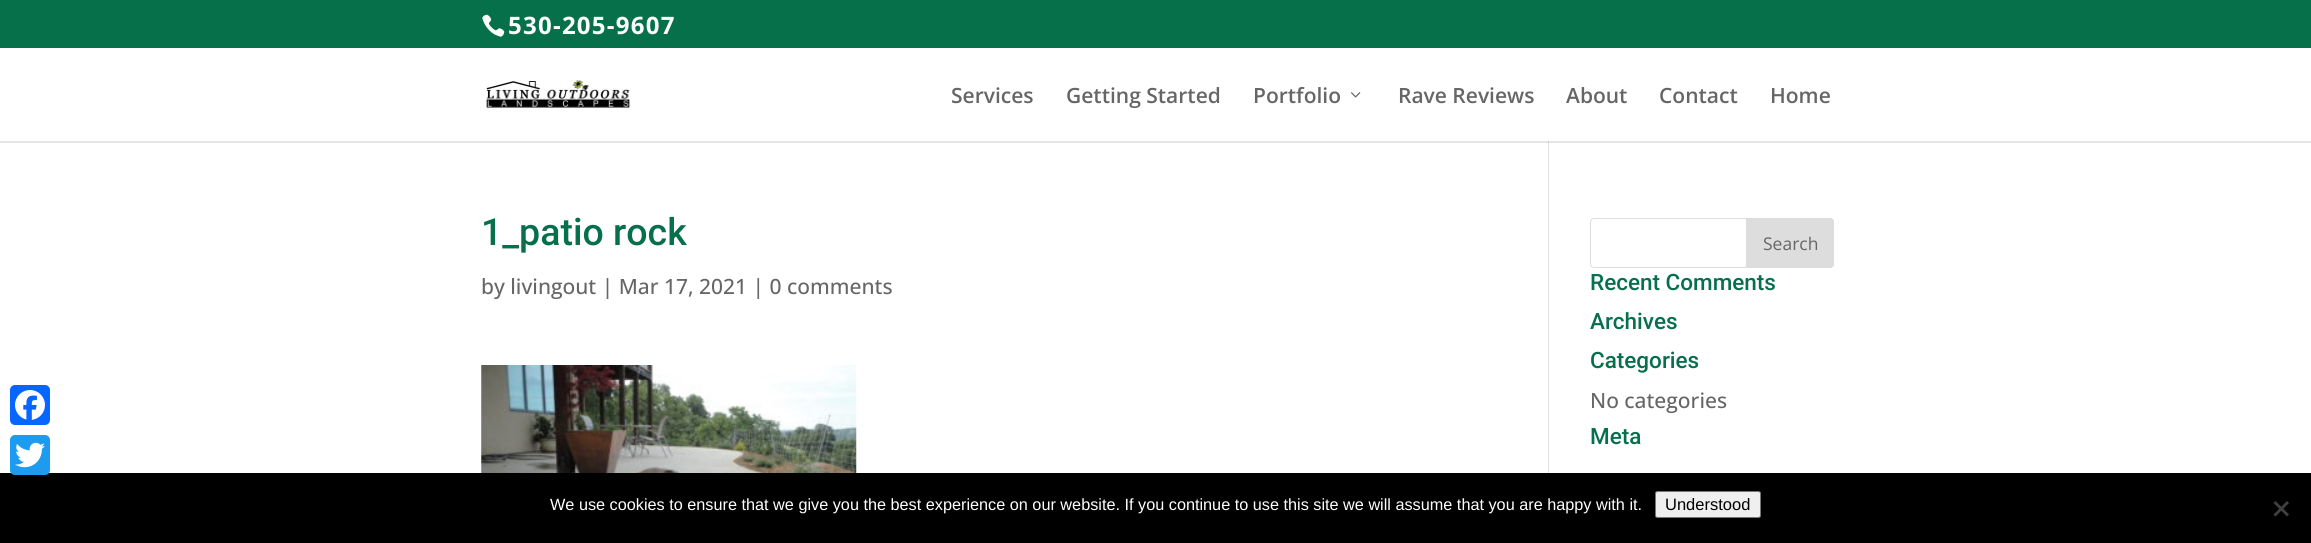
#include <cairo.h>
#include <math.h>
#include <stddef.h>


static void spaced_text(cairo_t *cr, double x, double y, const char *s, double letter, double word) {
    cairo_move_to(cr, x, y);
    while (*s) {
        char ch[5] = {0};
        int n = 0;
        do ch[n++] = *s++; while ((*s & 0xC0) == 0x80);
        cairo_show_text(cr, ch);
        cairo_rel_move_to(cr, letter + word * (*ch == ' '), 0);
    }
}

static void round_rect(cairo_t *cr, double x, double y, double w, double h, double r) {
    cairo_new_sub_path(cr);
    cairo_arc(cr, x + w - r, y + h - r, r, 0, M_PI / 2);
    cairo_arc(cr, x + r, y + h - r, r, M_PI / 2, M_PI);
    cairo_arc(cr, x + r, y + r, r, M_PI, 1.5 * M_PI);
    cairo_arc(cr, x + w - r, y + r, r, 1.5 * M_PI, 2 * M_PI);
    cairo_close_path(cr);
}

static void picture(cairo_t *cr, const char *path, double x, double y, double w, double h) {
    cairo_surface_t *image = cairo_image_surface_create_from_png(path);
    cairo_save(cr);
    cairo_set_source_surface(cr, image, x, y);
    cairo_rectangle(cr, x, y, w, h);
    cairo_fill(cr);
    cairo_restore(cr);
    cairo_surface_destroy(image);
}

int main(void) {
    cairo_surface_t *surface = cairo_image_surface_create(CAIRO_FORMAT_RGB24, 2311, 543);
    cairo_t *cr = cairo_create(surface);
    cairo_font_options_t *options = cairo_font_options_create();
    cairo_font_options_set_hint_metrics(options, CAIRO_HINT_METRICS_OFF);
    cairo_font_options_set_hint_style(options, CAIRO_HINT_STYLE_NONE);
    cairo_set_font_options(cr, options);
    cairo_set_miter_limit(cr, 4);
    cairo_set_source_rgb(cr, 1, 1, 1);
    cairo_paint(cr);
    cairo_set_source_rgb(cr, 0.902, 0.902, 0.902);
    cairo_rectangle(cr, 0, 141, 2311, 2);
    cairo_fill(cr);
    cairo_set_source_rgb(cr, 0.031, 0.4, 1);
    round_rect(cr, 10, 385, 40, 40, 5);
    cairo_fill(cr);
    picture(cr, "img1.png", 15, 390, 30, 30);
    cairo_set_source_rgb(cr, 0, 0, 0);
    cairo_rectangle(cr, 0, 473, 2311, 70);
    cairo_fill(cr);
    cairo_set_source_rgb(cr, 0.114, 0.608, 0.941);
    round_rect(cr, 10, 435, 40, 40, 5);
    cairo_fill(cr);
    picture(cr, "img2.png", 15, 442, 30, 26);
    cairo_set_source_rgb(cr, 0.024, 0.439, 0.294);
    cairo_rectangle(cr, 0, 0, 2311, 48);
    cairo_fill(cr);
    picture(cr, "img3.png", 482, 14, 23, 23);
    cairo_select_font_face(cr, "Open Sans", CAIRO_FONT_SLANT_NORMAL, CAIRO_FONT_WEIGHT_BOLD);
    cairo_set_font_size(cr, 24);
    cairo_set_source_rgb(cr, 1, 1, 1);
    spaced_text(cr, 508, 34, "530-205-9607", 1.25, 0);
    picture(cr, "img4.png", 486, 80, 145, 28);
    cairo_select_font_face(cr, "Open Sans SemiBold", CAIRO_FONT_SLANT_NORMAL, CAIRO_FONT_WEIGHT_NORMAL);
    cairo_set_font_size(cr, 21);
    cairo_set_source_rgb(cr, 0.4, 0.4, 0.4);
    cairo_move_to(cr, 951, 103);
    cairo_show_text(cr, "Services");
    cairo_move_to(cr, 1066, 103);
    cairo_show_text(cr, "Getting Started");
    cairo_move_to(cr, 1253, 103);
    cairo_show_text(cr, "Portfolio");
    picture(cr, "img5.png", 1351, 92, 10, 6);
    cairo_move_to(cr, 1398, 103);
    cairo_show_text(cr, "Rave Reviews");
    cairo_move_to(cr, 1566, 103);
    cairo_show_text(cr, "About");
    cairo_move_to(cr, 1659, 103);
    cairo_show_text(cr, "Contact");
    cairo_move_to(cr, 1770, 103);
    cairo_show_text(cr, "Home");
    cairo_set_source_rgb(cr, 0.886, 0.886, 0.886);
    cairo_rectangle(cr, 1548, 141, 1, 332);
    cairo_fill(cr);
    cairo_set_source_rgb(cr, 0.796, 0.796, 0.796);
    cairo_rectangle(cr, 1548, 141, 1, 2);
    cairo_fill(cr);
    cairo_select_font_face(cr, "Roboto Medium", CAIRO_FONT_SLANT_NORMAL, CAIRO_FONT_WEIGHT_NORMAL);
    cairo_set_font_size(cr, 37.5);
    cairo_set_source_rgb(cr, 0.024, 0.439, 0.294);
    cairo_move_to(cr, 481, 245);
    cairo_show_text(cr, "1_patio rock");
    cairo_select_font_face(cr, "Open Sans Medium", CAIRO_FONT_SLANT_NORMAL, CAIRO_FONT_WEIGHT_NORMAL);
    cairo_set_font_size(cr, 21);
    cairo_set_source_rgb(cr, 0.4, 0.4, 0.4);
    cairo_move_to(cr, 481, 294);
    cairo_show_text(cr, "by livingout | Mar 17, 2021 | 0 comments");
    picture(cr, "img6.png", 481, 365, 376, 108);
    round_rect(cr, 1590.5, 218.5, 243, 49, 3.5);
    cairo_set_source_rgb(cr, 0.867, 0.867, 0.867);
    cairo_set_line_width(cr, 1);
    cairo_stroke(cr);
    cairo_new_path(cr);
    cairo_move_to(cr, 1746.5, 218.5);
    cairo_line_to(cr, 1830, 218.5);
    cairo_curve_to(cr, 1832, 218.5, 1833.5, 220, 1833.5, 222);
    cairo_line_to(cr, 1833.5, 264);
    cairo_curve_to(cr, 1833.5, 266, 1832, 267.5, 1830, 267.5);
    cairo_line_to(cr, 1746.5, 267.5);
    cairo_close_path(cr);
    cairo_fill_preserve(cr);
    cairo_stroke(cr);
    cairo_select_font_face(cr, "Open Sans", CAIRO_FONT_SLANT_NORMAL, CAIRO_FONT_WEIGHT_NORMAL);
    cairo_set_font_size(cr, 17.5);
    cairo_set_source_rgb(cr, 0.4, 0.4, 0.4);
    cairo_move_to(cr, 1763, 250);
    cairo_show_text(cr, "Search");
    cairo_select_font_face(cr, "Roboto Medium", CAIRO_FONT_SLANT_NORMAL, CAIRO_FONT_WEIGHT_NORMAL);
    cairo_set_font_size(cr, 22.5);
    cairo_set_source_rgb(cr, 0.024, 0.439, 0.294);
    cairo_move_to(cr, 1590, 290);
    cairo_show_text(cr, "Recent Comments");
    cairo_move_to(cr, 1590, 329);
    cairo_show_text(cr, "Archives");
    cairo_move_to(cr, 1590, 368);
    cairo_show_text(cr, "Categories");
    cairo_select_font_face(cr, "Open Sans Medium", CAIRO_FONT_SLANT_NORMAL, CAIRO_FONT_WEIGHT_NORMAL);
    cairo_set_font_size(cr, 21);
    cairo_set_source_rgb(cr, 0.4, 0.4, 0.4);
    cairo_move_to(cr, 1590, 408);
    cairo_show_text(cr, "No categories");
    cairo_select_font_face(cr, "Roboto Medium", CAIRO_FONT_SLANT_NORMAL, CAIRO_FONT_WEIGHT_NORMAL);
    cairo_set_font_size(cr, 22.5);
    cairo_set_source_rgb(cr, 0.024, 0.439, 0.294);
    cairo_move_to(cr, 1590, 444);
    cairo_show_text(cr, "Meta");
    cairo_select_font_face(cr, "Liberation Sans", CAIRO_FONT_SLANT_NORMAL, CAIRO_FONT_WEIGHT_NORMAL);
    cairo_set_font_size(cr, 16.25);
    cairo_set_source_rgb(cr, 1, 1, 1);
    cairo_move_to(cr, 550, 510);
    cairo_show_text(cr, "We use cookies to ensure that we give you the best experience on our website. If you continue to use this site we will assume that you are happy with it.");
    cairo_set_source_rgb(cr, 0.937, 0.937, 0.937);
    round_rect(cr, 1655.5, 491.5, 105, 26, 2);
    cairo_fill_preserve(cr);
    cairo_set_source_rgb(cr, 0.463, 0.463, 0.463);
    cairo_stroke(cr);
    cairo_set_font_size(cr, 16.5);
    cairo_set_source_rgb(cr, 0, 0, 0);
    cairo_move_to(cr, 1665, 510);
    cairo_show_text(cr, "Understood");
    cairo_set_source_rgb(cr, 0.251, 0.251, 0.251);
    cairo_new_path(cr);
    cairo_move_to(cr, 2287, 501);
    cairo_line_to(cr, 2289, 503);
    cairo_line_to(cr, 2275.5, 516.5);
    cairo_line_to(cr, 2273.5, 514.5);
    cairo_close_path(cr);
    cairo_fill(cr);
    cairo_new_path(cr);
    cairo_move_to(cr, 2273.5, 503);
    cairo_line_to(cr, 2275.5, 501);
    cairo_line_to(cr, 2289, 514.5);
    cairo_line_to(cr, 2287, 516.5);
    cairo_close_path(cr);
    cairo_fill(cr);
    cairo_surface_write_to_png(surface, "page.png");
    cairo_font_options_destroy(options);
    cairo_destroy(cr);
    cairo_surface_destroy(surface);
    return 0;
}
